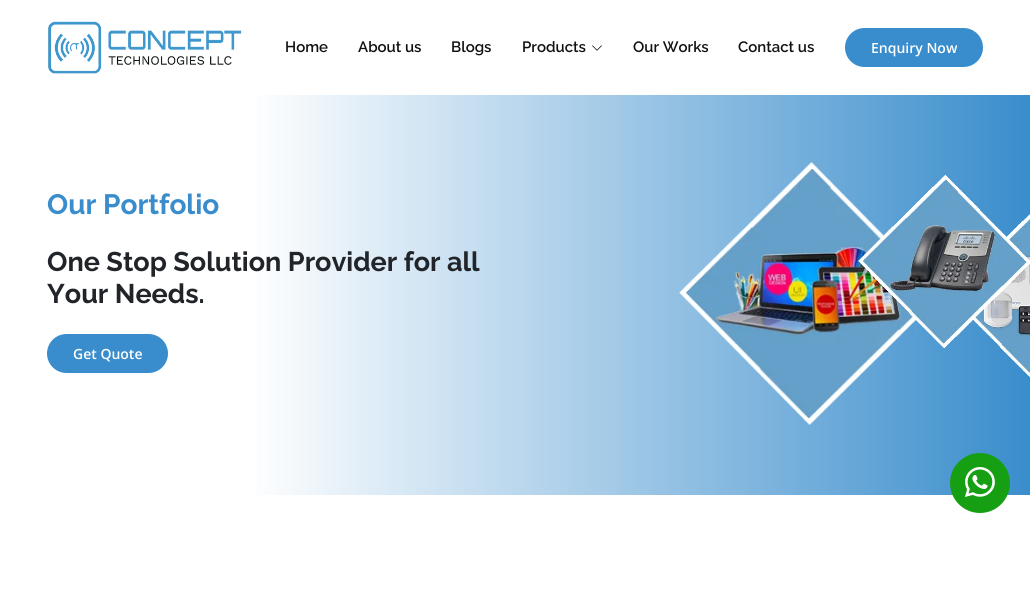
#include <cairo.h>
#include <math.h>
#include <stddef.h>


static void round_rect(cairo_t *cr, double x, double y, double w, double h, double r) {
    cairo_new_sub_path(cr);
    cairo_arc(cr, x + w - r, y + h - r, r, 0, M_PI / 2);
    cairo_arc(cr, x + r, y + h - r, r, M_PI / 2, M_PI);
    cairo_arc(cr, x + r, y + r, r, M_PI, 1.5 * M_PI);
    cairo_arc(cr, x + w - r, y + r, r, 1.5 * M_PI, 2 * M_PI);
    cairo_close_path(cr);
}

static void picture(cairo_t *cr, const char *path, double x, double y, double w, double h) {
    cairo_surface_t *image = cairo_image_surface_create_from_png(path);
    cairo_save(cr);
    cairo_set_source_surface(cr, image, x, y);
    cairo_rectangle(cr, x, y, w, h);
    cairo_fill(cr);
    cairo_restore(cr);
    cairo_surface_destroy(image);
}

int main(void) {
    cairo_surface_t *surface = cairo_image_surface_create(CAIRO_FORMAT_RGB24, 1030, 608);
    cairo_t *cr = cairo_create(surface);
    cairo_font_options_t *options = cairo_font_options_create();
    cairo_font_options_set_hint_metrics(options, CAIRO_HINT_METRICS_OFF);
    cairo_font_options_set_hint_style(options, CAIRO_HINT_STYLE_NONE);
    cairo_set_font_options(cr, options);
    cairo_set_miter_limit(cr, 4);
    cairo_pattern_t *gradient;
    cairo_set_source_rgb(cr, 1, 1, 1);
    cairo_paint(cr);
    picture(cr, "img1.png", 48, 21, 194, 53);
    cairo_select_font_face(cr, "Raleway SemiBold", CAIRO_FONT_SLANT_NORMAL, CAIRO_FONT_WEIGHT_NORMAL);
    cairo_set_font_size(cr, 15);
    cairo_set_source_rgb(cr, 0.067, 0.067, 0.067);
    cairo_move_to(cr, 285, 52);
    cairo_show_text(cr, "Home");
    cairo_move_to(cr, 358, 52);
    cairo_show_text(cr, "About us");
    cairo_move_to(cr, 451, 52);
    cairo_show_text(cr, "Blogs");
    cairo_move_to(cr, 522, 52);
    cairo_show_text(cr, "Products");
    picture(cr, "img2.png", 592, 45, 10, 6);
    cairo_move_to(cr, 633, 52);
    cairo_show_text(cr, "Our Works");
    cairo_move_to(cr, 738, 52);
    cairo_show_text(cr, "Contact us");
    cairo_set_source_rgb(cr, 0.227, 0.553, 0.8);
    round_rect(cr, 845, 28, 138, 39, 19.5);
    cairo_fill(cr);
    cairo_select_font_face(cr, "Open Sans SemiBold", CAIRO_FONT_SLANT_NORMAL, CAIRO_FONT_WEIGHT_NORMAL);
    cairo_set_font_size(cr, 14);
    cairo_set_source_rgb(cr, 1, 1, 1);
    cairo_move_to(cr, 871, 53);
    cairo_show_text(cr, "Enquiry Now");
    gradient = cairo_pattern_create_linear(0, 295, 1030, 295);
    cairo_pattern_add_color_stop_rgba(gradient, 0.24, 1, 1, 1, 1);
    cairo_pattern_add_color_stop_rgba(gradient, 1, 0.227, 0.553, 0.8, 1);
    cairo_set_source(cr, gradient);
    cairo_pattern_destroy(gradient);
    cairo_rectangle(cr, 257, 95, 773, 400);
    cairo_fill(cr);
    cairo_select_font_face(cr, "Raleway", CAIRO_FONT_SLANT_NORMAL, CAIRO_FONT_WEIGHT_BOLD);
    cairo_set_font_size(cr, 28);
    cairo_set_source_rgb(cr, 0.227, 0.553, 0.8);
    cairo_move_to(cr, 47, 214);
    cairo_show_text(cr, "Our Portfolio");
    cairo_set_font_size(cr, 27);
    cairo_set_source_rgb(cr, 0.129, 0.145, 0.161);
    cairo_move_to(cr, 47, 271);
    cairo_show_text(cr, "One Stop Solution Provider for all");
    cairo_move_to(cr, 47, 303);
    cairo_show_text(cr, "Your Needs.");
    cairo_set_source_rgb(cr, 0.227, 0.553, 0.8);
    round_rect(cr, 47, 334, 121, 39, 19.5);
    cairo_fill(cr);
    cairo_select_font_face(cr, "Open Sans SemiBold", CAIRO_FONT_SLANT_NORMAL, CAIRO_FONT_WEIGHT_NORMAL);
    cairo_set_font_size(cr, 14);
    cairo_set_source_rgb(cr, 1, 1, 1);
    cairo_move_to(cr, 73, 359);
    cairo_show_text(cr, "Get Quote");
    picture(cr, "img3.png", 679, 162, 238, 263);
    picture(cr, "img5.png", 973, 214, 57, 163);
    picture(cr, "img4.png", 858, 175, 172, 173);
    cairo_set_source_rgb(cr, 0.09, 0.624, 0.082);
    cairo_arc(cr, 980, 483, 30, 0, 2 * M_PI);
    cairo_fill(cr);
    picture(cr, "img6.png", 965, 467, 30, 30);
    cairo_surface_write_to_png(surface, "page.png");
    cairo_font_options_destroy(options);
    cairo_destroy(cr);
    cairo_surface_destroy(surface);
    return 0;
}
